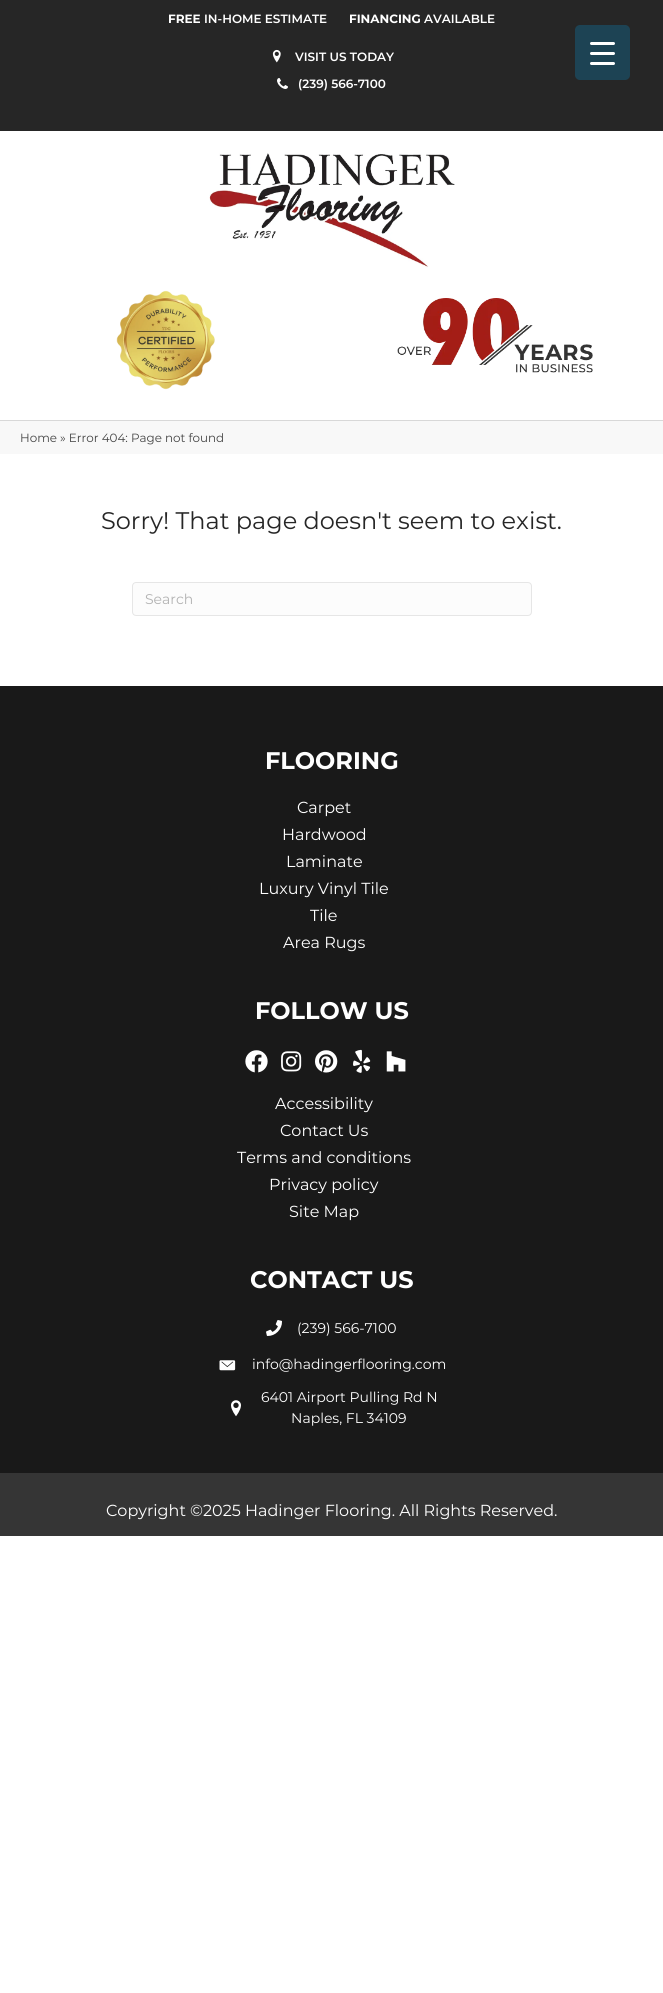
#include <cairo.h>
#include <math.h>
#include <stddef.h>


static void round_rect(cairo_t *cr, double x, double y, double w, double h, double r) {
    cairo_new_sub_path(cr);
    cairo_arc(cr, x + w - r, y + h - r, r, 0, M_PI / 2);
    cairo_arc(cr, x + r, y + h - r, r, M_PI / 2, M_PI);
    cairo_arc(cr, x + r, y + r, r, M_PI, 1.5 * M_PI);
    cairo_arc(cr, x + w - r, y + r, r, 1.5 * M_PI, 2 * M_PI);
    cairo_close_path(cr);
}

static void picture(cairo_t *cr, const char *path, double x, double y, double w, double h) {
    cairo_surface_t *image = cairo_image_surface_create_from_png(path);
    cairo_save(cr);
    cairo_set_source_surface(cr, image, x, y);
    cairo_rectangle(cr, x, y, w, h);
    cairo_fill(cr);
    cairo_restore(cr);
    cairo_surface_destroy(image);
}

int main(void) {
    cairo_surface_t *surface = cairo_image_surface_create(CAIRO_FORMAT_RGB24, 663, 1993);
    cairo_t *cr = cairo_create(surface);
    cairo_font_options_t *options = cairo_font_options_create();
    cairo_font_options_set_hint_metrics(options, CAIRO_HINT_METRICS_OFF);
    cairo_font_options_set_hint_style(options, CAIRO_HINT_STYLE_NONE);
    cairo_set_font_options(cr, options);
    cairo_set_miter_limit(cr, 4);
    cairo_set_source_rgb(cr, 1, 1, 1);
    cairo_paint(cr);
    cairo_set_source_rgb(cr, 0.149, 0.149, 0.149);
    cairo_rectangle(cr, 0, 0, 663, 131);
    cairo_fill(cr);
    cairo_select_font_face(cr, "Montserrat", CAIRO_FONT_SLANT_NORMAL, CAIRO_FONT_WEIGHT_BOLD);
    cairo_set_font_size(cr, 12);
    cairo_set_source_rgb(cr, 1, 1, 1);
    cairo_move_to(cr, 168, 23);
    cairo_show_text(cr, "FREE");
    cairo_select_font_face(cr, "Montserrat SemiBold", CAIRO_FONT_SLANT_NORMAL, CAIRO_FONT_WEIGHT_NORMAL);
    cairo_move_to(cr, 204, 23);
    cairo_show_text(cr, "IN-HOME ESTIMATE");
    cairo_select_font_face(cr, "Montserrat", CAIRO_FONT_SLANT_NORMAL, CAIRO_FONT_WEIGHT_BOLD);
    cairo_move_to(cr, 349, 23);
    cairo_show_text(cr, "FINANCING");
    cairo_select_font_face(cr, "Montserrat SemiBold", CAIRO_FONT_SLANT_NORMAL, CAIRO_FONT_WEIGHT_NORMAL);
    cairo_move_to(cr, 424, 23);
    cairo_show_text(cr, "AVAILABLE");
    picture(cr, "img1.png", 272, 49, 9, 14);
    cairo_move_to(cr, 295, 61);
    cairo_show_text(cr, "VISIT US TODAY");
    picture(cr, "img2.png", 277, 78, 11, 11);
    cairo_move_to(cr, 298, 88);
    cairo_show_text(cr, "(239) 566-7100");
    picture(cr, "img3.png", 209, 153, 246, 115);
    picture(cr, "img4.png", 116, 290, 99, 100);
    picture(cr, "img5.png", 397, 298, 196, 75);
    cairo_set_source_rgb(cr, 0.847, 0.847, 0.847);
    cairo_rectangle(cr, 0, 420, 663, 1);
    cairo_fill(cr);
    cairo_set_source_rgb(cr, 0.969, 0.969, 0.969);
    cairo_rectangle(cr, 0, 421, 663, 33);
    cairo_fill(cr);
    cairo_select_font_face(cr, "Montserrat", CAIRO_FONT_SLANT_NORMAL, CAIRO_FONT_WEIGHT_NORMAL);
    cairo_set_font_size(cr, 11.9);
    cairo_set_source_rgb(cr, 0.267, 0.267, 0.267);
    cairo_move_to(cr, 20, 442);
    cairo_show_text(cr, "Home » Error 404: Page not found");
    cairo_set_font_size(cr, 24);
    cairo_set_source_rgb(cr, 0.149, 0.149, 0.149);
    cairo_move_to(cr, 101, 529);
    cairo_show_text(cr, "Sorry! That page doesn't seem to exist.");
    cairo_set_source_rgb(cr, 0.988, 0.988, 0.988);
    round_rect(cr, 132.5, 582.5, 399, 33, 3.5);
    cairo_fill_preserve(cr);
    cairo_set_source_rgb(cr, 0.902, 0.902, 0.902);
    cairo_set_line_width(cr, 1);
    cairo_stroke(cr);
    cairo_set_font_size(cr, 14);
    cairo_set_source_rgb(cr, 0.698, 0.698, 0.698);
    cairo_move_to(cr, 145, 604);
    cairo_show_text(cr, "Search");
    cairo_set_source_rgb(cr, 0.098, 0.098, 0.098);
    cairo_rectangle(cr, 0, 686, 663, 787);
    cairo_fill(cr);
    cairo_select_font_face(cr, "Montserrat", CAIRO_FONT_SLANT_NORMAL, CAIRO_FONT_WEIGHT_BOLD);
    cairo_set_font_size(cr, 24);
    cairo_set_source_rgb(cr, 1, 1, 1);
    cairo_move_to(cr, 265, 769);
    cairo_show_text(cr, "FLOORING");
    cairo_select_font_face(cr, "Montserrat", CAIRO_FONT_SLANT_NORMAL, CAIRO_FONT_WEIGHT_NORMAL);
    cairo_set_font_size(cr, 16);
    cairo_move_to(cr, 297, 813);
    cairo_show_text(cr, "Carpet");
    cairo_move_to(cr, 282, 840);
    cairo_show_text(cr, "Hardwood");
    cairo_move_to(cr, 286, 867);
    cairo_show_text(cr, "Laminate");
    cairo_move_to(cr, 259, 894);
    cairo_show_text(cr, "Luxury Vinyl Tile");
    cairo_move_to(cr, 310, 921);
    cairo_show_text(cr, "Tile");
    cairo_move_to(cr, 283, 948);
    cairo_show_text(cr, "Area Rugs");
    cairo_select_font_face(cr, "Montserrat", CAIRO_FONT_SLANT_NORMAL, CAIRO_FONT_WEIGHT_BOLD);
    cairo_set_font_size(cr, 24);
    cairo_move_to(cr, 255, 1019);
    cairo_show_text(cr, "FOLLOW US");
    picture(cr, "img6.png", 245, 1050, 23, 23);
    picture(cr, "img7.png", 281, 1051, 21, 21);
    picture(cr, "img8.png", 315, 1050, 23, 23);
    picture(cr, "img9.png", 353, 1049, 18, 24);
    picture(cr, "img10.png", 386, 1051, 20, 21);
    cairo_select_font_face(cr, "Montserrat", CAIRO_FONT_SLANT_NORMAL, CAIRO_FONT_WEIGHT_NORMAL);
    cairo_set_font_size(cr, 16);
    cairo_move_to(cr, 275, 1109);
    cairo_show_text(cr, "Accessibility");
    cairo_move_to(cr, 280, 1136);
    cairo_show_text(cr, "Contact Us");
    cairo_move_to(cr, 237, 1163);
    cairo_show_text(cr, "Terms and conditions");
    cairo_move_to(cr, 269, 1190);
    cairo_show_text(cr, "Privacy policy");
    cairo_move_to(cr, 289, 1217);
    cairo_show_text(cr, "Site Map");
    cairo_select_font_face(cr, "Montserrat", CAIRO_FONT_SLANT_NORMAL, CAIRO_FONT_WEIGHT_BOLD);
    cairo_set_font_size(cr, 24);
    cairo_move_to(cr, 250, 1288);
    cairo_show_text(cr, "CONTACT US");
    picture(cr, "img11.png", 266, 1320, 16, 16);
    cairo_select_font_face(cr, "Montserrat", CAIRO_FONT_SLANT_NORMAL, CAIRO_FONT_WEIGHT_NORMAL);
    cairo_set_font_size(cr, 14);
    cairo_move_to(cr, 297, 1333);
    cairo_show_text(cr, "(239) 566-7100");
    picture(cr, "img12.png", 219, 1360, 17, 11);
    cairo_move_to(cr, 252, 1369);
    cairo_show_text(cr, "info@hadingerflooring.com");
    picture(cr, "img13.png", 231, 1400, 10, 17);
    cairo_move_to(cr, 261, 1402);
    cairo_show_text(cr, "6401 Airport Pulling Rd N");
    cairo_move_to(cr, 291, 1423);
    cairo_show_text(cr, "Naples, FL 34109");
    cairo_set_source_rgb(cr, 0.208, 0.208, 0.208);
    cairo_rectangle(cr, 0, 1473, 663, 63);
    cairo_fill(cr);
    cairo_set_font_size(cr, 16);
    cairo_set_source_rgb(cr, 1, 1, 1);
    cairo_move_to(cr, 106, 1516);
    cairo_show_text(cr, "Copyright ©2025 Hadinger Flooring. All Rights Reserved.");
    cairo_set_source_rgb(cr, 0.114, 0.263, 0.329);
    round_rect(cr, 575, 25, 55, 55, 5);
    cairo_fill(cr);
    cairo_set_source_rgb(cr, 1, 1, 1);
    round_rect(cr, 590, 52, 25, 3, 1.5);
    cairo_fill(cr);
    round_rect(cr, 590, 42, 25, 3, 1.5);
    cairo_fill(cr);
    round_rect(cr, 590, 62, 25, 3, 1.5);
    cairo_fill(cr);
    cairo_surface_write_to_png(surface, "page.png");
    cairo_font_options_destroy(options);
    cairo_destroy(cr);
    cairo_surface_destroy(surface);
    return 0;
}
